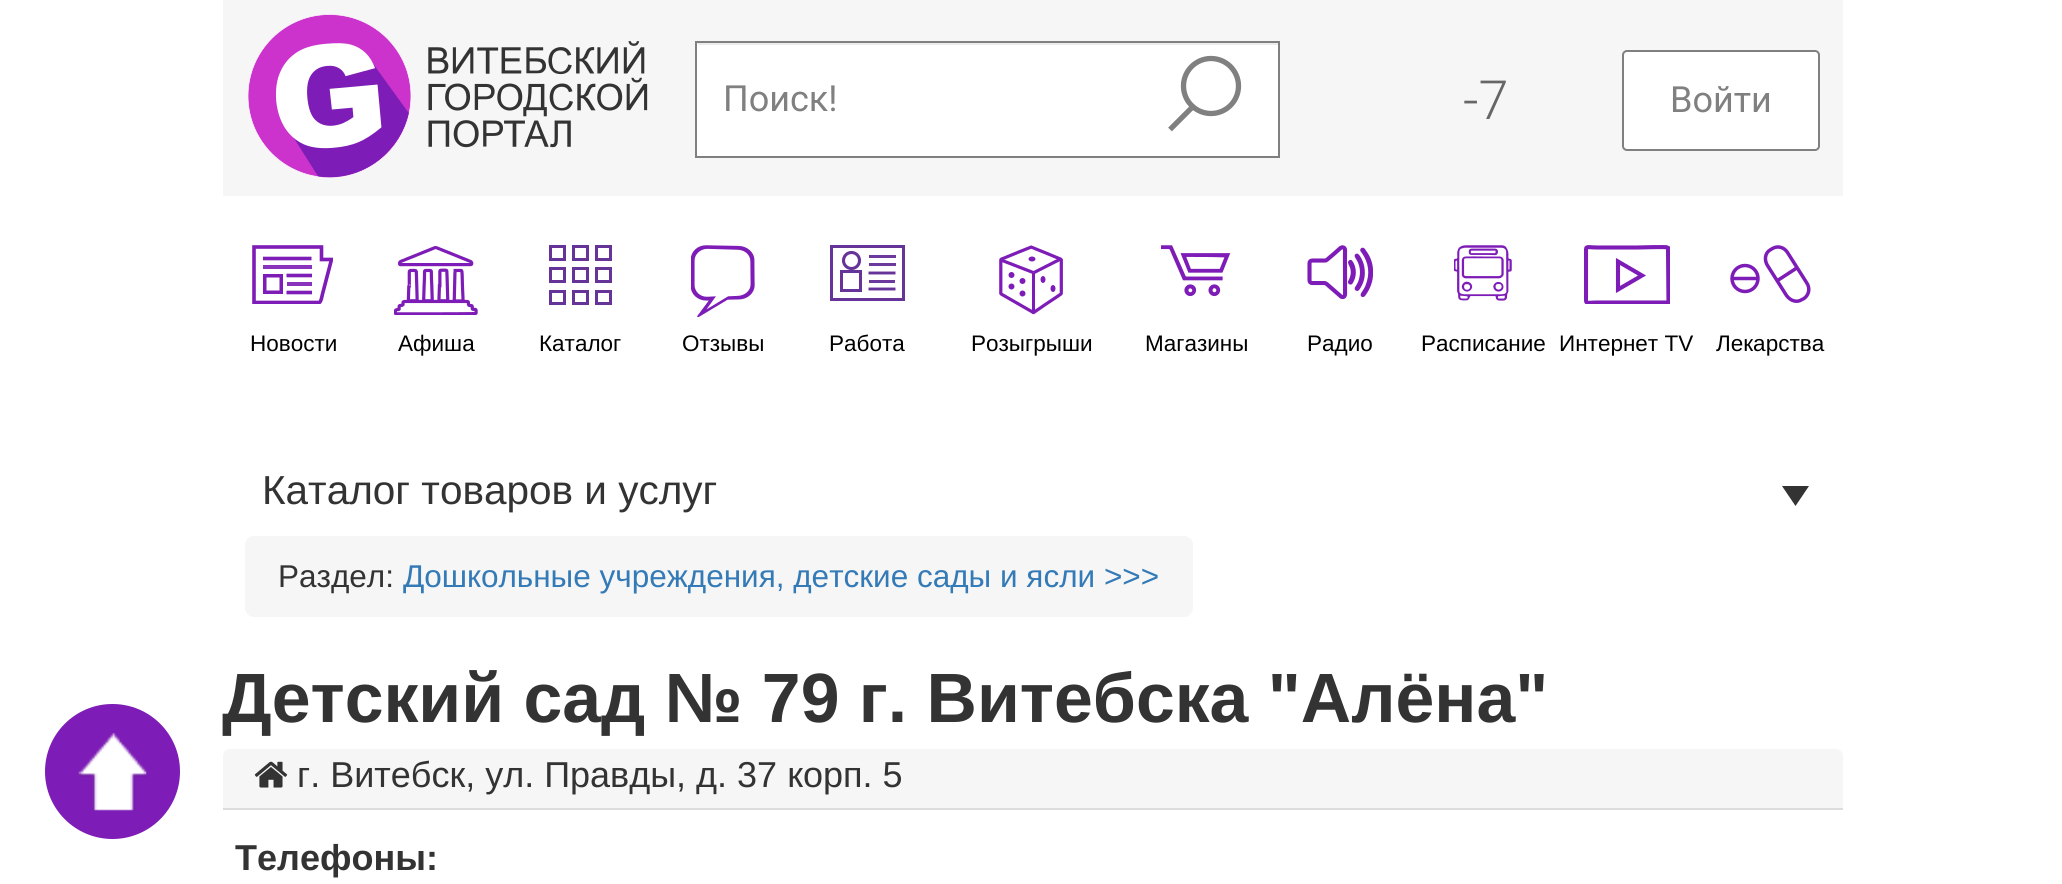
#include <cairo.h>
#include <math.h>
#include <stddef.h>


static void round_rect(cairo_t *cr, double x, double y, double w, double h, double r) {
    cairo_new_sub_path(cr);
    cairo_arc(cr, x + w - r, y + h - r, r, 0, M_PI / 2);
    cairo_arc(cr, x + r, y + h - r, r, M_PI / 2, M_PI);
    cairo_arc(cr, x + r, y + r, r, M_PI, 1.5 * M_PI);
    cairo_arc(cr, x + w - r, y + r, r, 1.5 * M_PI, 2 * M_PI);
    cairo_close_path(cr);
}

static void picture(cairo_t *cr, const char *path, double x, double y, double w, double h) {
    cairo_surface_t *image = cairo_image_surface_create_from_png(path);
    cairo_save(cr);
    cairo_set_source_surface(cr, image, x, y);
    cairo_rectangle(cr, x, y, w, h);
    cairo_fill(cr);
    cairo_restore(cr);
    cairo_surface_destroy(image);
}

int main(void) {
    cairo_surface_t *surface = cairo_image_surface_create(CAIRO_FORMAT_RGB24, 2062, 884);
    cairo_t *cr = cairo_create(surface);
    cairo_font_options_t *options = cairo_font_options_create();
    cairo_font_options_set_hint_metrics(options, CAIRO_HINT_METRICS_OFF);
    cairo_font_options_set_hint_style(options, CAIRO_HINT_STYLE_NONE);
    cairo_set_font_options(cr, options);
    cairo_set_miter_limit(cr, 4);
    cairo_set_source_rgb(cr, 1, 1, 1);
    cairo_paint(cr);
    cairo_set_source_rgb(cr, 0.961, 0.961, 0.961);
    cairo_rectangle(cr, 223, 0, 1620, 196);
    cairo_fill(cr);
    picture(cr, "img1.png", 248, 14, 400, 164);
    cairo_set_source_rgb(cr, 1, 1, 1);
    cairo_rectangle(cr, 697, 43, 581, 113);
    cairo_fill(cr);
    cairo_set_source_rgb(cr, 0.925, 0.925, 0.925);
    cairo_rectangle(cr, 698, 43, 580, 2);
    cairo_fill(cr);
    cairo_rectangle(cr, 696, 42, 583, 115);
    cairo_set_source_rgb(cr, 0.502, 0.502, 0.502);
    cairo_stroke(cr);
    cairo_select_font_face(cr, "Roboto", CAIRO_FONT_SLANT_NORMAL, CAIRO_FONT_WEIGHT_NORMAL);
    cairo_set_font_size(cr, 36);
    cairo_move_to(cr, 723, 111);
    cairo_show_text(cr, "Поиск!");
    cairo_new_path(cr);
    cairo_arc(cr, 1211, 86, 27.5, 0, 2 * M_PI);
    cairo_set_line_width(cr, 5.3);
    cairo_stroke(cr);
    cairo_new_path(cr);
    cairo_move_to(cr, 1194.5, 105);
    cairo_line_to(cr, 1170, 129.5);
    cairo_stroke(cr);
    cairo_select_font_face(cr, "Roboto Light", CAIRO_FONT_SLANT_NORMAL, CAIRO_FONT_WEIGHT_NORMAL);
    cairo_set_font_size(cr, 54);
    cairo_set_source_rgb(cr, 0.4, 0.4, 0.4);
    cairo_move_to(cr, 1463, 119);
    cairo_show_text(cr, "-7");
    cairo_set_source_rgb(cr, 1, 1, 1);
    round_rect(cr, 1623, 51, 196, 99, 4);
    cairo_fill_preserve(cr);
    cairo_set_source_rgb(cr, 0.502, 0.502, 0.502);
    cairo_set_line_width(cr, 2);
    cairo_stroke(cr);
    cairo_select_font_face(cr, "Roboto", CAIRO_FONT_SLANT_NORMAL, CAIRO_FONT_WEIGHT_NORMAL);
    cairo_set_font_size(cr, 36);
    cairo_move_to(cr, 1670, 112);
    cairo_show_text(cr, "Войти");
    cairo_save(cr);
    cairo_rectangle(cr, 252, 245, 81, 59);
    cairo_clip(cr);
    cairo_new_path(cr);
    cairo_move_to(cr, 254, 247);
    cairo_line_to(cr, 321.5, 247);
    cairo_line_to(cr, 321.5, 259.5);
    cairo_line_to(cr, 331.5, 259.5);
    cairo_line_to(cr, 322.5, 294);
    cairo_curve_to(cr, 321.5, 297.5, 321.5, 300.5, 319.5, 302.5);
    cairo_line_to(cr, 254, 302.5);
    cairo_close_path(cr);
    cairo_set_source_rgb(cr, 0.49, 0.11, 0.714);
    cairo_set_line_width(cr, 3.6);
    cairo_stroke(cr);
    cairo_restore(cr);
    cairo_new_path(cr);
    cairo_move_to(cr, 263, 258.5);
    cairo_line_to(cr, 311.5, 258.5);
    cairo_set_source_rgb(cr, 0.49, 0.11, 0.714);
    cairo_set_line_width(cr, 3.6);
    cairo_stroke(cr);
    cairo_set_source_rgb(cr, 0.541, 0.2, 0.741);
    cairo_rectangle(cr, 263, 265, 49, 4);
    cairo_fill(cr);
    cairo_rectangle(cr, 264.75, 275.75, 16.5, 16.5);
    cairo_set_source_rgb(cr, 0.49, 0.11, 0.714);
    cairo_set_line_width(cr, 3.5);
    cairo_stroke(cr);
    cairo_new_path(cr);
    cairo_move_to(cr, 286.5, 275.5);
    cairo_line_to(cr, 312, 275.5);
    cairo_set_line_width(cr, 3.6);
    cairo_stroke(cr);
    cairo_set_source_rgb(cr, 0.541, 0.2, 0.741);
    cairo_rectangle(cr, 287, 282, 25, 4);
    cairo_fill(cr);
    cairo_new_path(cr);
    cairo_move_to(cr, 286.5, 292.5);
    cairo_line_to(cr, 312, 292.5);
    cairo_set_source_rgb(cr, 0.49, 0.11, 0.714);
    cairo_stroke(cr);
    cairo_select_font_face(cr, "Liberation Sans", CAIRO_FONT_SLANT_NORMAL, CAIRO_FONT_WEIGHT_NORMAL);
    cairo_set_font_size(cr, 22.5);
    cairo_set_source_rgb(cr, 0, 0, 0);
    cairo_move_to(cr, 250, 351);
    cairo_show_text(cr, "Новости");
    picture(cr, "img2.png", 394, 246, 84, 69);
    cairo_move_to(cr, 398, 351);
    cairo_show_text(cr, "Афиша");
    cairo_rectangle(cr, 550.5, 246.5, 14, 13);
    cairo_set_source_rgb(cr, 0.4, 0.2, 0.6);
    cairo_set_line_width(cr, 3);
    cairo_stroke(cr);
    cairo_rectangle(cr, 573.5, 246.5, 14, 13);
    cairo_stroke(cr);
    cairo_rectangle(cr, 596.5, 246.5, 14, 13);
    cairo_stroke(cr);
    cairo_rectangle(cr, 550.5, 268.5, 14, 13);
    cairo_stroke(cr);
    cairo_rectangle(cr, 573.5, 268.5, 14, 13);
    cairo_stroke(cr);
    cairo_rectangle(cr, 596.5, 268.5, 14, 13);
    cairo_stroke(cr);
    cairo_rectangle(cr, 550.5, 291.5, 14, 12);
    cairo_stroke(cr);
    cairo_rectangle(cr, 573.5, 291.5, 14, 12);
    cairo_stroke(cr);
    cairo_rectangle(cr, 596.5, 291.5, 14, 12);
    cairo_stroke(cr);
    cairo_set_source_rgb(cr, 0, 0, 0);
    cairo_move_to(cr, 539, 351);
    cairo_show_text(cr, "Каталог");
    picture(cr, "img3.png", 691, 245, 64, 72);
    cairo_move_to(cr, 682, 351);
    cairo_show_text(cr, "Отзывы");
    cairo_new_path(cr);
    cairo_arc(cr, 851.5, 260.5, 8, 0, 2 * M_PI);
    cairo_set_source_rgb(cr, 0.4, 0.2, 0.6);
    cairo_set_line_width(cr, 3.1);
    cairo_stroke(cr);
    cairo_rectangle(cr, 831.5, 246.5, 72, 53);
    cairo_set_line_width(cr, 3);
    cairo_stroke(cr);
    cairo_set_source_rgb(cr, 0.42, 0.227, 0.612);
    cairo_rectangle(cr, 869, 255, 27, 3);
    cairo_fill(cr);
    cairo_rectangle(cr, 869, 263, 27, 3);
    cairo_fill(cr);
    cairo_rectangle(cr, 841.5, 271.5, 19, 19);
    cairo_set_source_rgb(cr, 0.4, 0.2, 0.6);
    cairo_stroke(cr);
    cairo_new_path(cr);
    cairo_move_to(cr, 868.5, 273);
    cairo_line_to(cr, 895.5, 273);
    cairo_set_line_width(cr, 2.9);
    cairo_stroke(cr);
    cairo_set_source_rgb(cr, 0.42, 0.227, 0.612);
    cairo_rectangle(cr, 869, 280, 26, 3);
    cairo_fill(cr);
    cairo_new_path(cr);
    cairo_move_to(cr, 868.5, 289);
    cairo_line_to(cr, 895.5, 289);
    cairo_set_source_rgb(cr, 0.4, 0.2, 0.6);
    cairo_stroke(cr);
    cairo_set_source_rgb(cr, 0, 0, 0);
    cairo_move_to(cr, 829, 351);
    cairo_show_text(cr, "Работа");
    picture(cr, "img4.png", 999, 245, 64, 70);
    cairo_move_to(cr, 971, 351);
    cairo_show_text(cr, "Розыгрыши");
    picture(cr, "img5.png", 1161, 245, 70, 52);
    cairo_move_to(cr, 1145, 351);
    cairo_show_text(cr, "Магазины");
    picture(cr, "img6.png", 1307, 245, 66, 54);
    cairo_move_to(cr, 1307, 351);
    cairo_show_text(cr, "Радио");
    picture(cr, "img7.png", 1454, 245, 58, 56);
    cairo_move_to(cr, 1421, 351);
    cairo_show_text(cr, "Расписание");
    cairo_save(cr);
    cairo_rectangle(cr, 1584, 245, 86, 59);
    cairo_clip(cr);
    cairo_new_path(cr);
    cairo_move_to(cr, 1668.5, 302.5);
    cairo_line_to(cr, 1598, 302.5);
    cairo_curve_to(cr, 1584.5, 302.5, 1586, 305.5, 1586, 294);
    cairo_line_to(cr, 1586, 255.5);
    cairo_curve_to(cr, 1586, 244.5, 1584.5, 247.5, 1598, 247.5);
    cairo_line_to(cr, 1637, 247.5);
    cairo_curve_to(cr, 1640, 247.5, 1667, 246.5, 1668, 247.5);
    cairo_close_path(cr);
    cairo_set_source_rgb(cr, 0.49, 0.11, 0.714);
    cairo_set_line_width(cr, 4.1);
    cairo_stroke(cr);
    cairo_restore(cr);
    cairo_new_path(cr);
    cairo_move_to(cr, 1618, 289.5);
    cairo_line_to(cr, 1618, 261.5);
    cairo_line_to(cr, 1642, 275.5);
    cairo_close_path(cr);
    cairo_set_source_rgb(cr, 0.49, 0.11, 0.714);
    cairo_set_line_width(cr, 4.1);
    cairo_stroke(cr);
    cairo_set_source_rgb(cr, 0, 0, 0);
    cairo_move_to(cr, 1559, 351);
    cairo_show_text(cr, "Интернет TV");
    cairo_new_path(cr);
    cairo_move_to(cr, 1732, 278.5);
    cairo_line_to(cr, 1757.5, 278.5);
    cairo_set_source_rgb(cr, 0.49, 0.11, 0.714);
    cairo_set_line_width(cr, 3.5);
    cairo_stroke(cr);
    cairo_arc(cr, 1745, 278.5, 13, 0, 2 * M_PI);
    cairo_stroke(cr);
    cairo_new_path(cr);
    cairo_move_to(cr, 1802, 299.5);
    cairo_curve_to(cr, 1797, 303, 1790.5, 301, 1786.5, 295.5);
    cairo_line_to(cr, 1767.5, 265.5);
    cairo_curve_to(cr, 1764, 260, 1765, 253, 1770, 250);
    cairo_line_to(cr, 1772.5, 248.5);
    cairo_curve_to(cr, 1777.5, 245.5, 1784, 247, 1787.5, 252.5);
    cairo_line_to(cr, 1806.5, 282.5);
    cairo_curve_to(cr, 1810.5, 288, 1809, 295, 1804, 298.5);
    cairo_close_path(cr);
    cairo_move_to(cr, 1797.5, 267.5);
    cairo_line_to(cr, 1777.5, 280.5);
    cairo_stroke(cr);
    cairo_set_source_rgb(cr, 0, 0, 0);
    cairo_move_to(cr, 1716, 351);
    cairo_show_text(cr, "Лекарства");
    cairo_set_source_rgb(cr, 0.49, 0.11, 0.714);
    cairo_new_path(cr);
    cairo_arc(cr, 112.5, 771.5, 67.5, 0, 2 * M_PI);
    cairo_fill(cr);
    picture(cr, "img8.png", 78, 733, 69, 78);
    cairo_set_font_size(cr, 40.5);
    cairo_set_source_rgb(cr, 0.2, 0.2, 0.2);
    cairo_move_to(cr, 262, 504);
    cairo_show_text(cr, "Каталог товаров и услуг");
    cairo_new_path(cr);
    cairo_move_to(cr, 1782, 486);
    cairo_line_to(cr, 1809, 486);
    cairo_line_to(cr, 1795.5, 506);
    cairo_close_path(cr);
    cairo_fill(cr);
    cairo_set_source_rgb(cr, 0.961, 0.961, 0.961);
    round_rect(cr, 245, 536, 948, 81, 9);
    cairo_fill(cr);
    cairo_set_font_size(cr, 31.5);
    cairo_set_source_rgb(cr, 0.2, 0.2, 0.2);
    cairo_move_to(cr, 278, 587);
    cairo_show_text(cr, "Раздел:");
    cairo_set_source_rgb(cr, 0.2, 0.478, 0.718);
    cairo_move_to(cr, 403, 587);
    cairo_show_text(cr, "Дошкольные учреждения, детские сады и ясли >>>");
    cairo_select_font_face(cr, "Liberation Sans", CAIRO_FONT_SLANT_NORMAL, CAIRO_FONT_WEIGHT_BOLD);
    cairo_set_font_size(cr, 69.75);
    cairo_set_source_rgb(cr, 0.2, 0.2, 0.2);
    cairo_move_to(cr, 222, 722);
    cairo_show_text(cr, "Детский сад № 79 г. Витебска \"Алёна\"");
    cairo_set_source_rgb(cr, 0.961, 0.961, 0.961);
    cairo_new_path(cr);
    cairo_move_to(cr, 230, 749);
    cairo_line_to(cr, 1836, 749);
    cairo_curve_to(cr, 1840, 749, 1843, 752, 1843, 756);
    cairo_line_to(cr, 1843, 810);
    cairo_line_to(cr, 223, 810);
    cairo_line_to(cr, 223, 756);
    cairo_curve_to(cr, 223, 752, 226, 749, 230, 749);
    cairo_close_path(cr);
    cairo_fill(cr);
    cairo_set_source_rgb(cr, 0.867, 0.867, 0.867);
    cairo_rectangle(cr, 223, 808, 1620, 2);
    cairo_fill(cr);
    picture(cr, "img9.png", 254, 761, 34, 27);
    cairo_select_font_face(cr, "Liberation Sans", CAIRO_FONT_SLANT_NORMAL, CAIRO_FONT_WEIGHT_NORMAL);
    cairo_set_font_size(cr, 36);
    cairo_set_source_rgb(cr, 0.2, 0.2, 0.2);
    cairo_move_to(cr, 297, 787);
    cairo_show_text(cr, "г. Витебск, ул. Правды, д. 37 корп. 5");
    cairo_select_font_face(cr, "Liberation Sans", CAIRO_FONT_SLANT_NORMAL, CAIRO_FONT_WEIGHT_BOLD);
    cairo_move_to(cr, 235, 870);
    cairo_show_text(cr, "Телефоны:");
    cairo_surface_write_to_png(surface, "page.png");
    cairo_font_options_destroy(options);
    cairo_destroy(cr);
    cairo_surface_destroy(surface);
    return 0;
}
